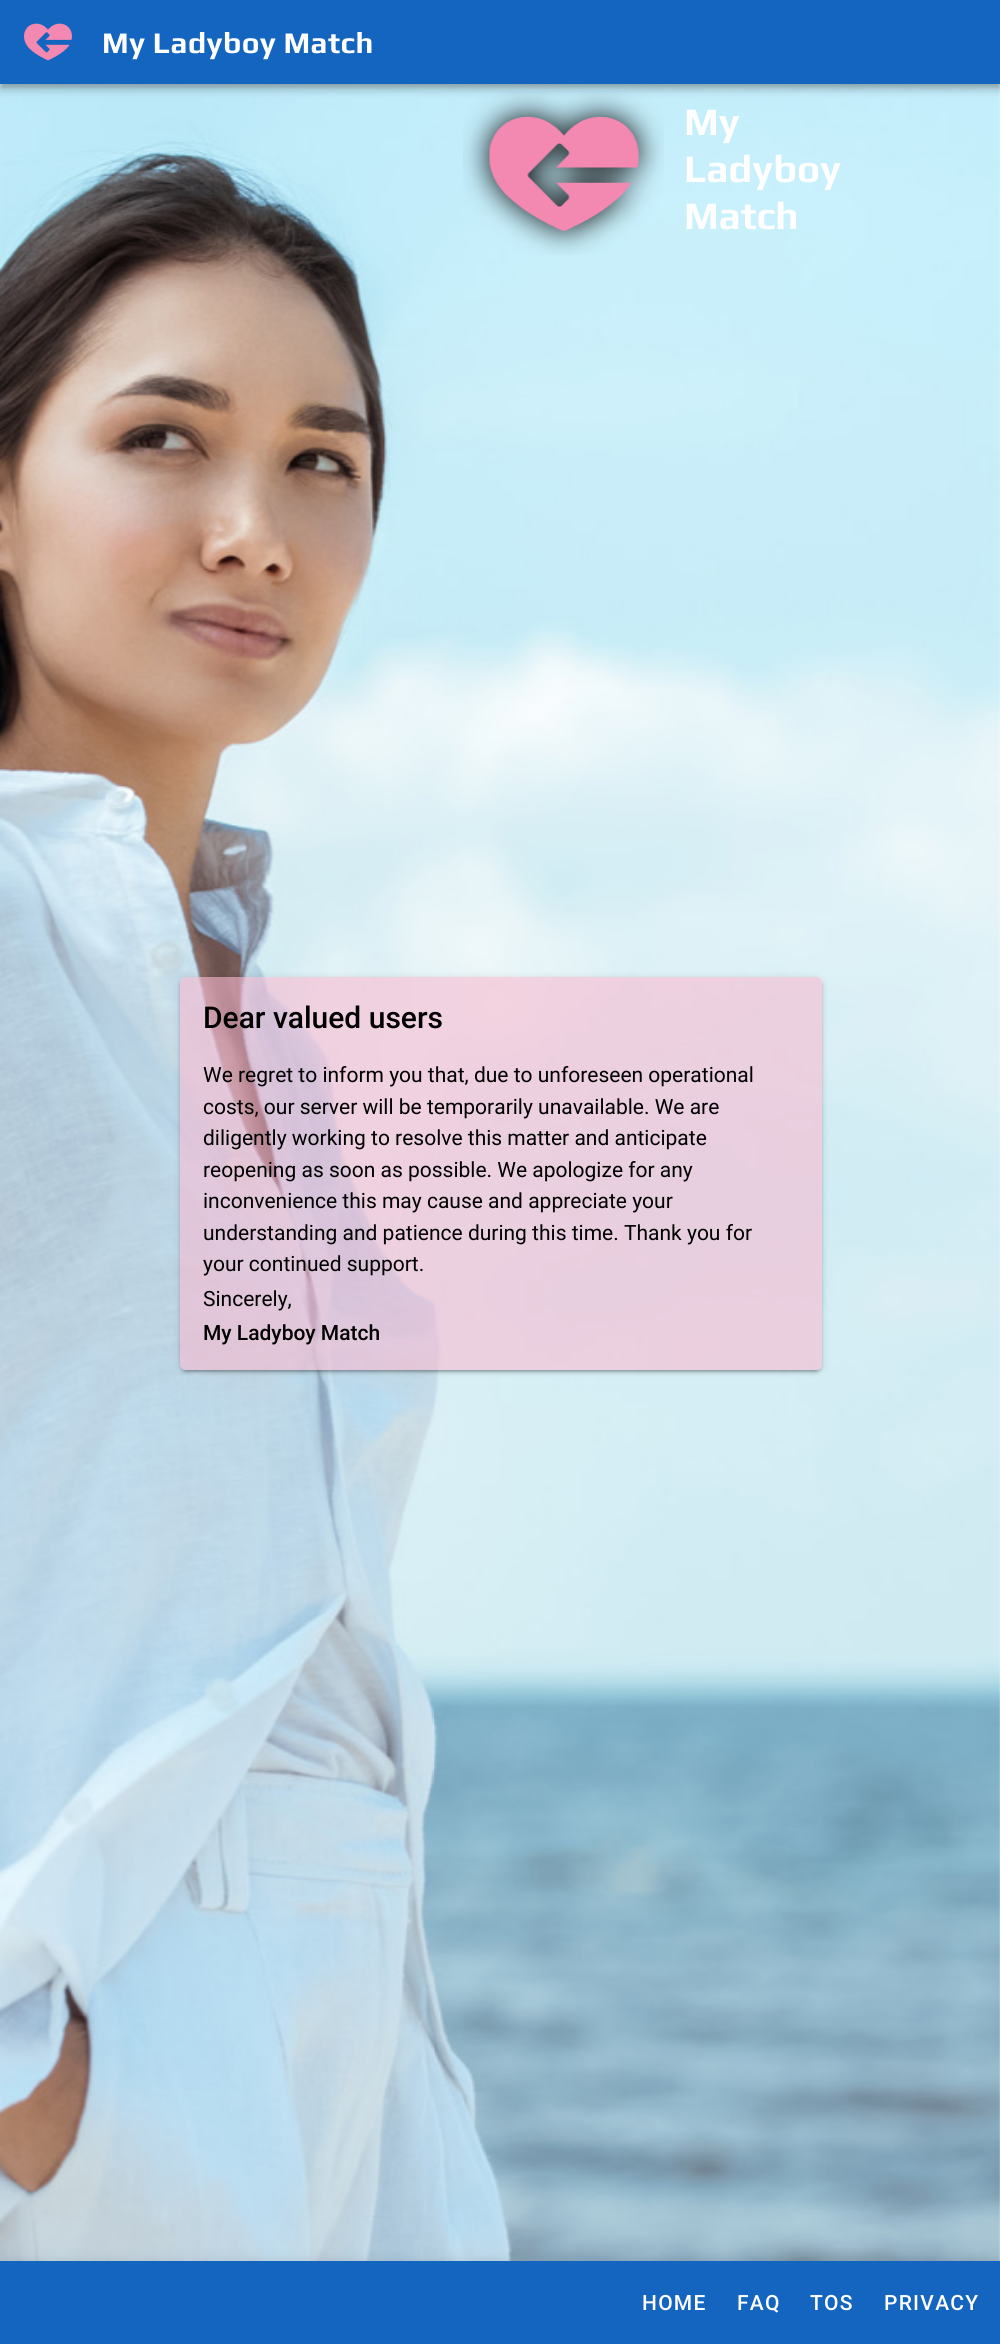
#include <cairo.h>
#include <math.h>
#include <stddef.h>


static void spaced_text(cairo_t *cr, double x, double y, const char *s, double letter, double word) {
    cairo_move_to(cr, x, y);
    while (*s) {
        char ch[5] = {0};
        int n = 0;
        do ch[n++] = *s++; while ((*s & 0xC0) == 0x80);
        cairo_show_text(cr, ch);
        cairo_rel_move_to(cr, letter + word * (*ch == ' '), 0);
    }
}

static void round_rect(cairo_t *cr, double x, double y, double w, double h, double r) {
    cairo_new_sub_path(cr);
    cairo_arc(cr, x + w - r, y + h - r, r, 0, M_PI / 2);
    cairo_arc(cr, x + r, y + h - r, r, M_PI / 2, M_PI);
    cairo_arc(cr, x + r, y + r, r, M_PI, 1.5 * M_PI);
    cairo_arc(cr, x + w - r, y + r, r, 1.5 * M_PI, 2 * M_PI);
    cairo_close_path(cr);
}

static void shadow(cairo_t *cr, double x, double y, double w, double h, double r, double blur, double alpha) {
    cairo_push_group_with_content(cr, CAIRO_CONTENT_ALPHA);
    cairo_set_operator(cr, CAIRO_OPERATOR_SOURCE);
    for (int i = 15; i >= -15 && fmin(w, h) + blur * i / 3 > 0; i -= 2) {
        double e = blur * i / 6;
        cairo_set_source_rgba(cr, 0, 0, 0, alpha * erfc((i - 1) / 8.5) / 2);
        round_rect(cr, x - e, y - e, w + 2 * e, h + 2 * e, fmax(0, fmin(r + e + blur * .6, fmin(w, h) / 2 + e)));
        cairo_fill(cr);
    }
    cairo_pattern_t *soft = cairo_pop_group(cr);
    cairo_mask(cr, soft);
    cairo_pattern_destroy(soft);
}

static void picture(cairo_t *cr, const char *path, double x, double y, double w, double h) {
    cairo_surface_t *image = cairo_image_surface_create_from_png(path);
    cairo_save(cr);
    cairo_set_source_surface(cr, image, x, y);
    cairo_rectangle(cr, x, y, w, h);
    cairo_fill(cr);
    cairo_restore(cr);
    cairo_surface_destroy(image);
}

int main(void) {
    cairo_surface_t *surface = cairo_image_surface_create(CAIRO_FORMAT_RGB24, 1000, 2344);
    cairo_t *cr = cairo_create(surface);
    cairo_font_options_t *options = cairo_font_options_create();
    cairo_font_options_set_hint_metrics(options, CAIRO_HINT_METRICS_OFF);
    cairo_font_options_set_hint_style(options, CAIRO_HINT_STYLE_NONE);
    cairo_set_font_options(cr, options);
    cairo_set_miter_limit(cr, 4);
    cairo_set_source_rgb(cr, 1, 1, 1);
    cairo_paint(cr);
    picture(cr, "img2.png", 0, 84, 1000, 2177);
    picture(cr, "img3.png", 463, 91, 201, 164);
    cairo_set_source_rgb(cr, 0, 0, 0);
    shadow(cr, 0, 2, 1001, 84, 0, 7.5, 0.12);
    shadow(cr, 0, 6, 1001, 84, 0, 4, 0.14);
    shadow(cr, 2, 5, 997, 81, 0, 3, 0.2);
    cairo_set_source_rgb(cr, 0.082, 0.396, 0.753);
    cairo_rectangle(cr, 0, 0, 1000, 84);
    cairo_fill(cr);
    picture(cr, "img1.png", 24, 23, 48, 38);
    cairo_select_font_face(cr, "Play", CAIRO_FONT_SLANT_NORMAL, CAIRO_FONT_WEIGHT_BOLD);
    cairo_set_font_size(cr, 30);
    cairo_set_source_rgb(cr, 1, 1, 1);
    spaced_text(cr, 102, 53, "My Ladyboy Match", 0.4, 0);
    cairo_set_font_size(cr, 39);
    cairo_move_to(cr, 684, 135);
    cairo_show_text(cr, "My");
    cairo_move_to(cr, 684, 182);
    cairo_show_text(cr, "Ladyboy");
    cairo_move_to(cr, 684, 229);
    cairo_show_text(cr, "Match");
    cairo_save(cr);
    cairo_set_fill_rule(cr, CAIRO_FILL_RULE_EVEN_ODD);
    cairo_new_path(cr);
    cairo_move_to(cr, 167, 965);
    cairo_line_to(cr, 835, 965);
    cairo_line_to(cr, 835, 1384);
    cairo_line_to(cr, 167, 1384);
    cairo_close_path(cr);
    cairo_move_to(cr, 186, 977);
    cairo_line_to(cr, 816, 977);
    cairo_curve_to(cr, 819.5, 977, 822, 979.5, 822, 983);
    cairo_line_to(cr, 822, 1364);
    cairo_curve_to(cr, 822, 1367.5, 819.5, 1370, 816, 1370);
    cairo_line_to(cr, 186, 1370);
    cairo_curve_to(cr, 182.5, 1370, 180, 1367.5, 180, 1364);
    cairo_line_to(cr, 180, 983);
    cairo_curve_to(cr, 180, 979.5, 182.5, 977, 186, 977);
    cairo_close_path(cr);
    cairo_clip(cr);
    cairo_set_source_rgb(cr, 0, 0, 0);
    shadow(cr, 180, 978, 642, 393, 6, 4, 0.12);
    cairo_restore(cr);
    cairo_save(cr);
    cairo_set_fill_rule(cr, CAIRO_FILL_RULE_EVEN_ODD);
    cairo_new_path(cr);
    cairo_move_to(cr, 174, 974);
    cairo_line_to(cr, 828, 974);
    cairo_line_to(cr, 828, 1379);
    cairo_line_to(cr, 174, 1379);
    cairo_close_path(cr);
    cairo_move_to(cr, 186, 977);
    cairo_line_to(cr, 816, 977);
    cairo_curve_to(cr, 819.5, 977, 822, 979.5, 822, 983);
    cairo_line_to(cr, 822, 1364);
    cairo_curve_to(cr, 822, 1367.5, 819.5, 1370, 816, 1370);
    cairo_line_to(cr, 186, 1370);
    cairo_curve_to(cr, 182.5, 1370, 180, 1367.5, 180, 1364);
    cairo_line_to(cr, 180, 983);
    cairo_curve_to(cr, 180, 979.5, 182.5, 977, 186, 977);
    cairo_close_path(cr);
    cairo_clip(cr);
    cairo_set_source_rgb(cr, 0, 0, 0);
    shadow(cr, 180, 980, 642, 393, 6, 1.5, 0.14);
    cairo_restore(cr);
    cairo_save(cr);
    cairo_set_fill_rule(cr, CAIRO_FILL_RULE_EVEN_ODD);
    cairo_new_path(cr);
    cairo_move_to(cr, 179, 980);
    cairo_line_to(cr, 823, 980);
    cairo_line_to(cr, 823, 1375);
    cairo_line_to(cr, 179, 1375);
    cairo_close_path(cr);
    cairo_move_to(cr, 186, 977);
    cairo_line_to(cr, 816, 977);
    cairo_curve_to(cr, 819.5, 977, 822, 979.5, 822, 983);
    cairo_line_to(cr, 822, 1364);
    cairo_curve_to(cr, 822, 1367.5, 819.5, 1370, 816, 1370);
    cairo_line_to(cr, 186, 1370);
    cairo_curve_to(cr, 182.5, 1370, 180, 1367.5, 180, 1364);
    cairo_line_to(cr, 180, 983);
    cairo_curve_to(cr, 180, 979.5, 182.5, 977, 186, 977);
    cairo_close_path(cr);
    cairo_clip(cr);
    cairo_set_source_rgb(cr, 0, 0, 0);
    shadow(cr, 183, 984, 636, 387, 3, 1, 0.2);
    cairo_restore(cr);
    cairo_set_source_rgba(cr, 0.973, 0.733, 0.816, 0.6);
    round_rect(cr, 180, 977, 642, 393, 6);
    cairo_fill(cr);
    cairo_select_font_face(cr, "Roboto Medium", CAIRO_FONT_SLANT_NORMAL, CAIRO_FONT_WEIGHT_NORMAL);
    cairo_set_font_size(cr, 30);
    cairo_set_source_rgb(cr, 0, 0, 0);
    cairo_move_to(cr, 203, 1028);
    cairo_show_text(cr, "Dear valued users");
    cairo_select_font_face(cr, "Roboto", CAIRO_FONT_SLANT_NORMAL, CAIRO_FONT_WEIGHT_NORMAL);
    cairo_set_font_size(cr, 21);
    cairo_move_to(cr, 203, 1082);
    cairo_show_text(cr, "We regret to inform you that, due to unforeseen operational");
    cairo_move_to(cr, 203, 1114);
    cairo_show_text(cr, "costs, our server will be temporarily unavailable. We are");
    cairo_move_to(cr, 203, 1145);
    cairo_show_text(cr, "diligently working to resolve this matter and anticipate");
    cairo_move_to(cr, 203, 1177);
    cairo_show_text(cr, "reopening as soon as possible. We apologize for any");
    cairo_move_to(cr, 203, 1208);
    cairo_show_text(cr, "inconvenience this may cause and appreciate your");
    cairo_move_to(cr, 203, 1240);
    cairo_show_text(cr, "understanding and patience during this time. Thank you for");
    cairo_move_to(cr, 203, 1271);
    cairo_show_text(cr, "your continued support.");
    cairo_move_to(cr, 203, 1306);
    cairo_show_text(cr, "Sincerely,");
    cairo_select_font_face(cr, "Roboto Medium", CAIRO_FONT_SLANT_NORMAL, CAIRO_FONT_WEIGHT_NORMAL);
    cairo_move_to(cr, 203, 1340);
    cairo_show_text(cr, "My Ladyboy Match");
    cairo_set_source_rgb(cr, 0, 0, 0);
    shadow(cr, 0, 2262, 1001, 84, 0, 7.5, 0.12);
    cairo_set_source_rgb(cr, 0.082, 0.396, 0.753);
    cairo_rectangle(cr, 0, 2261, 1000, 83);
    cairo_fill(cr);
    cairo_set_source_rgb(cr, 1, 1, 1);
    spaced_text(cr, 642, 2310, "HOME", 1.25, 0);
    spaced_text(cr, 737, 2310, "FAQ", 1.25, 0);
    spaced_text(cr, 810, 2310, "TOS", 1.25, 0);
    spaced_text(cr, 884, 2310, "PRIVACY", 1.25, 0);
    cairo_surface_write_to_png(surface, "page.png");
    cairo_font_options_destroy(options);
    cairo_destroy(cr);
    cairo_surface_destroy(surface);
    return 0;
}
